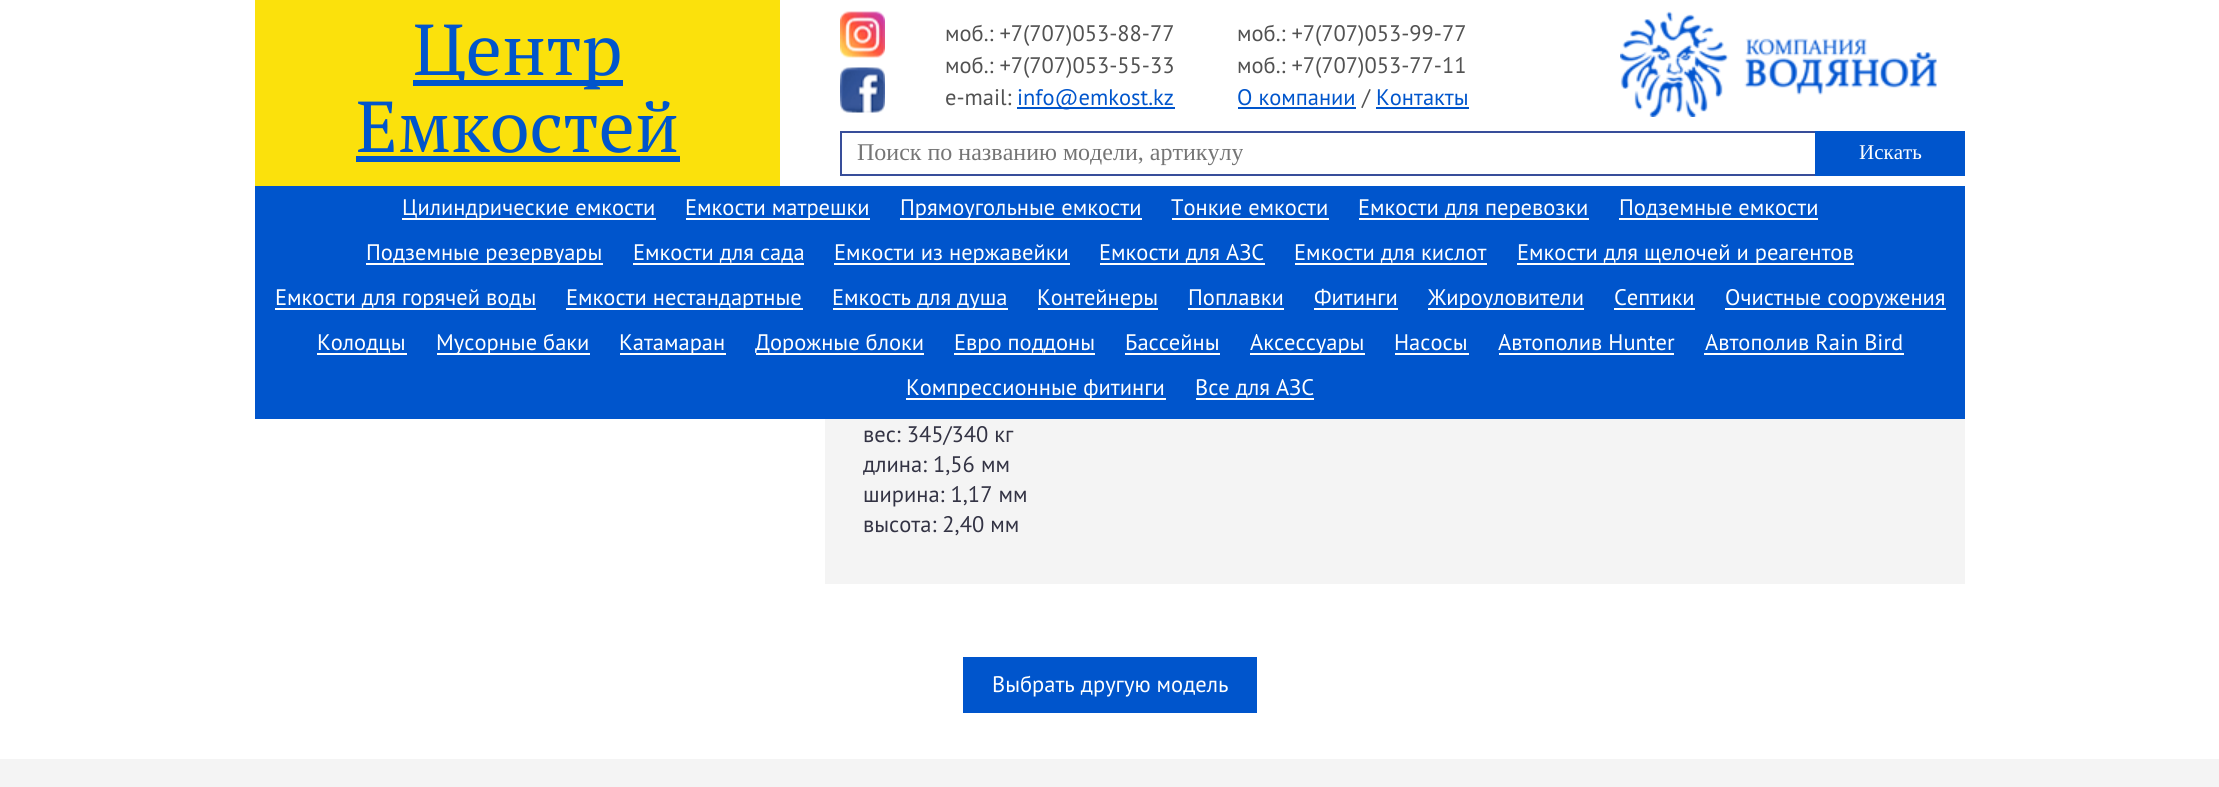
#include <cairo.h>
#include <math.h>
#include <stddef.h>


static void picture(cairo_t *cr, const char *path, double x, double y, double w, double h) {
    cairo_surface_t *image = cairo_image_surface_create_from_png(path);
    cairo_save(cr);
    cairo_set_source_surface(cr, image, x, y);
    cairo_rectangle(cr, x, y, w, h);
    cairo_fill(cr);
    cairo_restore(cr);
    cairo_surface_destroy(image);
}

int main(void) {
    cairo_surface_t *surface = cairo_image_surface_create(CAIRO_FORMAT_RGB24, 2219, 787);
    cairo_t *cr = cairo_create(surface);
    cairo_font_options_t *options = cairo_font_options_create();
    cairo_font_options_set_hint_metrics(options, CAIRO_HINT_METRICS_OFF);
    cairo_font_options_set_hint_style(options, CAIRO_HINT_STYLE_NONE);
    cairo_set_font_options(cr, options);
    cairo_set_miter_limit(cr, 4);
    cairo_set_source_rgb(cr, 1, 1, 1);
    cairo_paint(cr);
    cairo_set_source_rgb(cr, 0.984, 0.882, 0.047);
    cairo_rectangle(cr, 255, 0, 525, 186);
    cairo_fill(cr);
    cairo_set_source_rgb(cr, 0, 0.333, 0.8);
    cairo_rectangle(cr, 413, 80, 210, 6);
    cairo_fill(cr);
    cairo_select_font_face(cr, "PT Serif", CAIRO_FONT_SLANT_NORMAL, CAIRO_FONT_WEIGHT_NORMAL);
    cairo_set_font_size(cr, 72);
    cairo_move_to(cr, 413, 75);
    cairo_show_text(cr, "Центр");
    cairo_move_to(cr, 356, 152);
    cairo_show_text(cr, "Емкостей");
    cairo_rectangle(cr, 356, 156, 324, 6);
    cairo_fill(cr);
    picture(cr, "img1.png", 840, 11, 45, 47);
    picture(cr, "img2.png", 840, 67, 45, 46);
    cairo_select_font_face(cr, "PT Sans", CAIRO_FONT_SLANT_NORMAL, CAIRO_FONT_WEIGHT_NORMAL);
    cairo_set_font_size(cr, 22.5);
    cairo_set_source_rgb(cr, 0.322, 0.322, 0.322);
    cairo_move_to(cr, 945, 41);
    cairo_show_text(cr, "моб.: +7(707)053-88-77");
    cairo_move_to(cr, 945, 73);
    cairo_show_text(cr, "моб.: +7(707)053-55-33");
    cairo_move_to(cr, 945, 105);
    cairo_show_text(cr, "e-mail:");
    cairo_set_source_rgb(cr, 0, 0.333, 0.8);
    cairo_rectangle(cr, 1017, 107, 158, 2);
    cairo_fill(cr);
    cairo_move_to(cr, 1017, 105);
    cairo_show_text(cr, "info@emkost.kz");
    cairo_set_source_rgb(cr, 0.322, 0.322, 0.322);
    cairo_move_to(cr, 1237, 41);
    cairo_show_text(cr, "моб.: +7(707)053-99-77");
    cairo_move_to(cr, 1237, 73);
    cairo_show_text(cr, "моб.: +7(707)053-77-11");
    cairo_set_source_rgb(cr, 0, 0.333, 0.8);
    cairo_move_to(cr, 1237, 105);
    cairo_show_text(cr, "О компании");
    cairo_rectangle(cr, 1238, 107, 118, 2);
    cairo_fill(cr);
    cairo_set_source_rgb(cr, 0.322, 0.322, 0.322);
    cairo_move_to(cr, 1362, 105);
    cairo_show_text(cr, "/");
    cairo_set_source_rgb(cr, 0, 0.333, 0.8);
    cairo_move_to(cr, 1376, 105);
    cairo_show_text(cr, "Контакты");
    cairo_rectangle(cr, 1376, 107, 93, 2);
    cairo_fill(cr);
    picture(cr, "img3.png", 1620, 11, 317, 106);
    cairo_rectangle(cr, 841, 132, 1123, 43);
    cairo_set_source_rgb(cr, 0.22, 0.306, 0.604);
    cairo_stroke(cr);
    cairo_select_font_face(cr, "Liberation Serif", CAIRO_FONT_SLANT_NORMAL, CAIRO_FONT_WEIGHT_NORMAL);
    cairo_set_font_size(cr, 24);
    cairo_set_source_rgb(cr, 0.459, 0.459, 0.459);
    cairo_move_to(cr, 857, 160);
    cairo_show_text(cr, "Поиск по названию модели, артикулу");
    cairo_set_source_rgb(cr, 0, 0.333, 0.8);
    cairo_rectangle(cr, 1815, 131, 150, 45);
    cairo_fill(cr);
    cairo_set_font_size(cr, 21);
    cairo_set_source_rgb(cr, 1, 1, 1);
    cairo_move_to(cr, 1859, 159);
    cairo_show_text(cr, "Искать");
    cairo_set_source_rgb(cr, 0, 0.333, 0.8);
    cairo_rectangle(cr, 255, 186, 1710, 233);
    cairo_fill(cr);
    cairo_set_source_rgb(cr, 1, 1, 1);
    cairo_rectangle(cr, 402, 218, 254, 2);
    cairo_fill(cr);
    cairo_select_font_face(cr, "PT Sans", CAIRO_FONT_SLANT_NORMAL, CAIRO_FONT_WEIGHT_NORMAL);
    cairo_set_font_size(cr, 22.5);
    cairo_move_to(cr, 402, 215);
    cairo_show_text(cr, "Цилиндрические емкости");
    cairo_rectangle(cr, 686, 218, 184, 2);
    cairo_fill(cr);
    cairo_move_to(cr, 685, 215);
    cairo_show_text(cr, "Емкости матрешки");
    cairo_rectangle(cr, 900, 218, 242, 2);
    cairo_fill(cr);
    cairo_move_to(cr, 900, 215);
    cairo_show_text(cr, "Прямоугольные емкости");
    cairo_move_to(cr, 1171, 215);
    cairo_show_text(cr, "Тонкие емкости");
    cairo_rectangle(cr, 1172, 218, 157, 2);
    cairo_fill(cr);
    cairo_rectangle(cr, 1359, 218, 230, 2);
    cairo_fill(cr);
    cairo_move_to(cr, 1358, 215);
    cairo_show_text(cr, "Емкости для перевозки");
    cairo_move_to(cr, 1619, 215);
    cairo_show_text(cr, "Подземные емкости");
    cairo_rectangle(cr, 1619, 218, 199, 2);
    cairo_fill(cr);
    cairo_rectangle(cr, 366, 263, 237, 2);
    cairo_fill(cr);
    cairo_move_to(cr, 366, 260);
    cairo_show_text(cr, "Подземные резервуары");
    cairo_move_to(cr, 633, 260);
    cairo_show_text(cr, "Емкости для сада");
    cairo_rectangle(cr, 633, 263, 171, 2);
    cairo_fill(cr);
    cairo_rectangle(cr, 834, 263, 236, 2);
    cairo_fill(cr);
    cairo_move_to(cr, 834, 260);
    cairo_show_text(cr, "Емкости из нержавейки");
    cairo_move_to(cr, 1099, 260);
    cairo_show_text(cr, "Емкости для АЗС");
    cairo_rectangle(cr, 1100, 263, 165, 2);
    cairo_fill(cr);
    cairo_move_to(cr, 1294, 260);
    cairo_show_text(cr, "Емкости для кислот");
    cairo_rectangle(cr, 1295, 263, 192, 2);
    cairo_fill(cr);
    cairo_rectangle(cr, 1517, 263, 337, 2);
    cairo_fill(cr);
    cairo_move_to(cr, 1517, 260);
    cairo_show_text(cr, "Емкости для щелочей и реагентов");
    cairo_rectangle(cr, 275, 308, 261, 2);
    cairo_fill(cr);
    cairo_move_to(cr, 275, 305);
    cairo_show_text(cr, "Емкости для горячей воды");
    cairo_rectangle(cr, 566, 308, 237, 2);
    cairo_fill(cr);
    cairo_move_to(cr, 566, 305);
    cairo_show_text(cr, "Емкости нестандартные");
    cairo_rectangle(cr, 833, 308, 175, 2);
    cairo_fill(cr);
    cairo_move_to(cr, 832, 305);
    cairo_show_text(cr, "Емкость для душа");
    cairo_rectangle(cr, 1038, 308, 120, 2);
    cairo_fill(cr);
    cairo_move_to(cr, 1037, 305);
    cairo_show_text(cr, "Контейнеры");
    cairo_move_to(cr, 1188, 305);
    cairo_show_text(cr, "Поплавки");
    cairo_rectangle(cr, 1188, 308, 96, 2);
    cairo_fill(cr);
    cairo_move_to(cr, 1314, 305);
    cairo_show_text(cr, "Фитинги");
    cairo_rectangle(cr, 1314, 308, 84, 2);
    cairo_fill(cr);
    cairo_rectangle(cr, 1428, 308, 156, 2);
    cairo_fill(cr);
    cairo_move_to(cr, 1428, 305);
    cairo_show_text(cr, "Жироуловители");
    cairo_move_to(cr, 1614, 305);
    cairo_show_text(cr, "Септики");
    cairo_rectangle(cr, 1614, 308, 81, 2);
    cairo_fill(cr);
    cairo_rectangle(cr, 1725, 308, 221, 2);
    cairo_fill(cr);
    cairo_move_to(cr, 1725, 305);
    cairo_show_text(cr, "Очистные сооружения");
    cairo_move_to(cr, 317, 350);
    cairo_show_text(cr, "Колодцы");
    cairo_rectangle(cr, 317, 353, 90, 2);
    cairo_fill(cr);
    cairo_rectangle(cr, 437, 353, 153, 2);
    cairo_fill(cr);
    cairo_move_to(cr, 436, 350);
    cairo_show_text(cr, "Мусорные баки");
    cairo_rectangle(cr, 620, 353, 106, 2);
    cairo_fill(cr);
    cairo_move_to(cr, 619, 350);
    cairo_show_text(cr, "Катамаран");
    cairo_rectangle(cr, 756, 353, 168, 2);
    cairo_fill(cr);
    cairo_move_to(cr, 755, 350);
    cairo_show_text(cr, "Дорожные блоки");
    cairo_rectangle(cr, 954, 353, 141, 2);
    cairo_fill(cr);
    cairo_move_to(cr, 954, 350);
    cairo_show_text(cr, "Евро поддоны");
    cairo_move_to(cr, 1125, 350);
    cairo_show_text(cr, "Бассейны");
    cairo_rectangle(cr, 1125, 353, 95, 2);
    cairo_fill(cr);
    cairo_rectangle(cr, 1250, 353, 115, 2);
    cairo_fill(cr);
    cairo_move_to(cr, 1250, 350);
    cairo_show_text(cr, "Аксессуары");
    cairo_move_to(cr, 1394, 350);
    cairo_show_text(cr, "Насосы");
    cairo_rectangle(cr, 1395, 353, 74, 2);
    cairo_fill(cr);
    cairo_move_to(cr, 1498, 350);
    cairo_show_text(cr, "Автополив Hunter");
    cairo_rectangle(cr, 1499, 353, 175, 2);
    cairo_fill(cr);
    cairo_move_to(cr, 1705, 350);
    cairo_show_text(cr, "Автополив Rain Bird");
    cairo_rectangle(cr, 1704, 353, 200, 2);
    cairo_fill(cr);
    cairo_rectangle(cr, 906, 398, 260, 2);
    cairo_fill(cr);
    cairo_move_to(cr, 906, 395);
    cairo_show_text(cr, "Компрессионные фитинги");
    cairo_move_to(cr, 1195, 395);
    cairo_show_text(cr, "Все для АЗС");
    cairo_rectangle(cr, 1196, 398, 118, 2);
    cairo_fill(cr);
    cairo_set_source_rgb(cr, 0.957, 0.957, 0.957);
    cairo_rectangle(cr, 825, 419, 1140, 165);
    cairo_fill(cr);
    cairo_set_source_rgb(cr, 0.2, 0.2, 0.267);
    cairo_move_to(cr, 863, 442);
    cairo_show_text(cr, "вес: 345/340 кг");
    cairo_move_to(cr, 863, 472);
    cairo_show_text(cr, "длина: 1,56 мм");
    cairo_move_to(cr, 863, 502);
    cairo_show_text(cr, "ширина: 1,17 мм");
    cairo_move_to(cr, 863, 532);
    cairo_show_text(cr, "высота: 2,40 мм");
    cairo_set_source_rgb(cr, 0, 0.333, 0.8);
    cairo_rectangle(cr, 963, 657, 294, 56);
    cairo_fill(cr);
    cairo_set_source_rgb(cr, 1, 1, 1);
    cairo_move_to(cr, 992, 692);
    cairo_show_text(cr, "Выбрать другую модель");
    cairo_set_source_rgb(cr, 0.957, 0.957, 0.957);
    cairo_rectangle(cr, 0, 759, 2219, 28);
    cairo_fill(cr);
    cairo_surface_write_to_png(surface, "page.png");
    cairo_font_options_destroy(options);
    cairo_destroy(cr);
    cairo_surface_destroy(surface);
    return 0;
}
